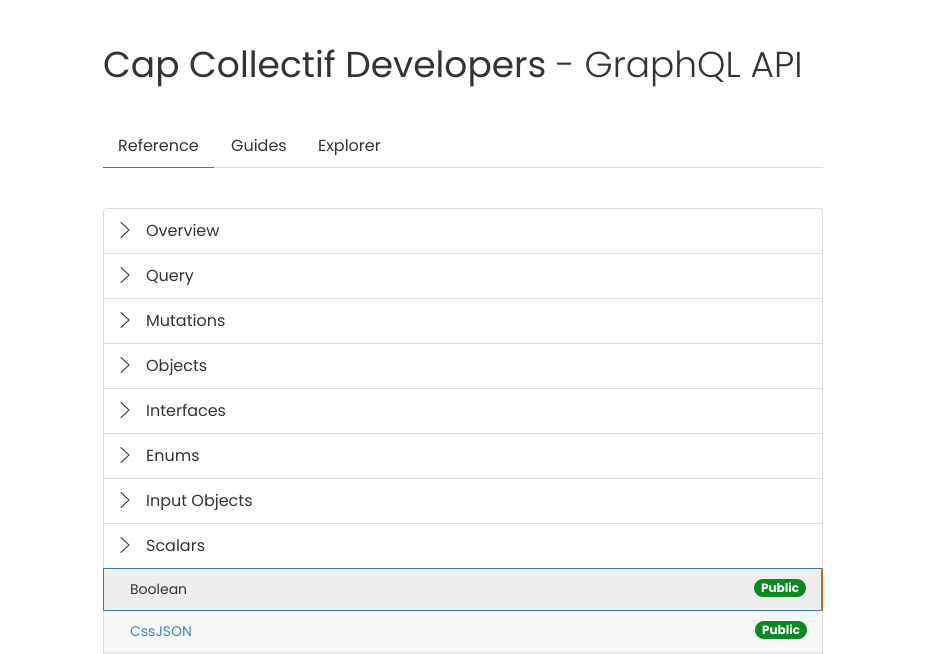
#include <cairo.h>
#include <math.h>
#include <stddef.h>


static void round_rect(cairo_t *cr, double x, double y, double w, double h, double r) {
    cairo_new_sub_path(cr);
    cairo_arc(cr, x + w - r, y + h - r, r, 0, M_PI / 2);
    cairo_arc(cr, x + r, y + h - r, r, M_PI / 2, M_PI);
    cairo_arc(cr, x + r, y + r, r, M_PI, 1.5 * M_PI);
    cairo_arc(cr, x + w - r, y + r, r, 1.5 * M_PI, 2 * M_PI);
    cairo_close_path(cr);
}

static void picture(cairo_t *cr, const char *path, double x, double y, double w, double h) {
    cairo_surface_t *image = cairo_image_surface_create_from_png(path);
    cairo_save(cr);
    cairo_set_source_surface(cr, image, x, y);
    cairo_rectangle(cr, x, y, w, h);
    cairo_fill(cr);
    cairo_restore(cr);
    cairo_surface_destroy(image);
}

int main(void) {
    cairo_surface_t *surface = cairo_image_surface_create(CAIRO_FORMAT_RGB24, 926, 654);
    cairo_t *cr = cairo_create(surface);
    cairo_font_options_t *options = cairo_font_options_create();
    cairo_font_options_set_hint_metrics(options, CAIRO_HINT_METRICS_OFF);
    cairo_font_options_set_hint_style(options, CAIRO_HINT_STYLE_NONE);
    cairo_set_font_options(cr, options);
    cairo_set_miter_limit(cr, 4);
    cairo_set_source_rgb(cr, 1, 1, 1);
    cairo_paint(cr);
    cairo_select_font_face(cr, "Poppins", CAIRO_FONT_SLANT_NORMAL, CAIRO_FONT_WEIGHT_NORMAL);
    cairo_set_font_size(cr, 36);
    cairo_set_source_rgb(cr, 0.2, 0.2, 0.2);
    cairo_move_to(cr, 103, 77);
    cairo_show_text(cr, "Cap Collectif Developers");
    cairo_select_font_face(cr, "Poppins Light", CAIRO_FONT_SLANT_NORMAL, CAIRO_FONT_WEIGHT_NORMAL);
    cairo_move_to(cr, 556, 77);
    cairo_show_text(cr, "- GraphQL API");
    cairo_set_source_rgb(cr, 0.867, 0.867, 0.867);
    cairo_rectangle(cr, 214, 167, 609, 1);
    cairo_fill(cr);
    cairo_set_source_rgb(cr, 0, 0.533, 0.8);
    cairo_rectangle(cr, 103, 167, 111, 1);
    cairo_fill(cr);
    cairo_select_font_face(cr, "Poppins", CAIRO_FONT_SLANT_NORMAL, CAIRO_FONT_WEIGHT_NORMAL);
    cairo_set_font_size(cr, 16);
    cairo_set_source_rgb(cr, 0.2, 0.2, 0.2);
    cairo_move_to(cr, 118, 151);
    cairo_show_text(cr, "Reference");
    cairo_move_to(cr, 231, 151);
    cairo_show_text(cr, "Guides");
    cairo_move_to(cr, 318, 151);
    cairo_show_text(cr, "Explorer");
    cairo_new_path(cr);
    cairo_move_to(cr, 107, 208.5);
    cairo_line_to(cr, 819, 208.5);
    cairo_curve_to(cr, 821, 208.5, 822.5, 210, 822.5, 212);
    cairo_line_to(cr, 822.5, 253.5);
    cairo_line_to(cr, 103.5, 253.5);
    cairo_line_to(cr, 103.5, 212);
    cairo_curve_to(cr, 103.5, 210, 105, 208.5, 107, 208.5);
    cairo_close_path(cr);
    cairo_set_source_rgb(cr, 0.867, 0.867, 0.867);
    cairo_set_line_width(cr, 1);
    cairo_stroke(cr);
    picture(cr, "img1.png", 120, 222, 10, 16);
    cairo_set_source_rgb(cr, 0.2, 0.2, 0.2);
    cairo_move_to(cr, 146, 236);
    cairo_show_text(cr, "Overview");
    cairo_rectangle(cr, 103.5, 253.5, 719, 45);
    cairo_set_source_rgb(cr, 0.867, 0.867, 0.867);
    cairo_stroke(cr);
    picture(cr, "img1.png", 120, 267, 10, 16);
    cairo_set_source_rgb(cr, 0.2, 0.2, 0.2);
    cairo_move_to(cr, 146, 281);
    cairo_show_text(cr, "Query");
    cairo_rectangle(cr, 103.5, 298.5, 719, 45);
    cairo_set_source_rgb(cr, 0.867, 0.867, 0.867);
    cairo_stroke(cr);
    picture(cr, "img1.png", 120, 312, 10, 16);
    cairo_set_source_rgb(cr, 0.2, 0.2, 0.2);
    cairo_move_to(cr, 146, 326);
    cairo_show_text(cr, "Mutations");
    cairo_rectangle(cr, 103.5, 343.5, 719, 45);
    cairo_set_source_rgb(cr, 0.867, 0.867, 0.867);
    cairo_stroke(cr);
    picture(cr, "img1.png", 120, 357, 10, 16);
    cairo_set_source_rgb(cr, 0.2, 0.2, 0.2);
    cairo_move_to(cr, 146, 371);
    cairo_show_text(cr, "Objects");
    cairo_rectangle(cr, 103.5, 388.5, 719, 45);
    cairo_set_source_rgb(cr, 0.867, 0.867, 0.867);
    cairo_stroke(cr);
    picture(cr, "img1.png", 120, 402, 10, 16);
    cairo_set_source_rgb(cr, 0.2, 0.2, 0.2);
    cairo_move_to(cr, 146, 416);
    cairo_show_text(cr, "Interfaces");
    cairo_rectangle(cr, 103.5, 433.5, 719, 45);
    cairo_set_source_rgb(cr, 0.867, 0.867, 0.867);
    cairo_stroke(cr);
    picture(cr, "img1.png", 120, 447, 10, 16);
    cairo_set_source_rgb(cr, 0.2, 0.2, 0.2);
    cairo_move_to(cr, 146, 461);
    cairo_show_text(cr, "Enums");
    cairo_rectangle(cr, 103.5, 478.5, 719, 45);
    cairo_set_source_rgb(cr, 0.867, 0.867, 0.867);
    cairo_stroke(cr);
    picture(cr, "img1.png", 120, 492, 10, 16);
    cairo_set_source_rgb(cr, 0.2, 0.2, 0.2);
    cairo_move_to(cr, 146, 506);
    cairo_show_text(cr, "Input Objects");
    cairo_rectangle(cr, 103.5, 523.5, 719, 45);
    cairo_set_source_rgb(cr, 0.867, 0.867, 0.867);
    cairo_stroke(cr);
    picture(cr, "img1.png", 120, 537, 10, 16);
    cairo_set_source_rgb(cr, 0.2, 0.2, 0.2);
    cairo_move_to(cr, 146, 551);
    cairo_show_text(cr, "Scalars");
    cairo_set_source_rgb(cr, 0.933, 0.933, 0.933);
    cairo_rectangle(cr, 104, 569, 717, 41);
    cairo_fill(cr);
    cairo_set_source_rgb(cr, 0.2, 0.478, 0.718);
    cairo_new_path(cr);
    cairo_move_to(cr, 103, 568);
    cairo_line_to(cr, 823, 568);
    cairo_line_to(cr, 821, 569);
    cairo_line_to(cr, 104, 569);
    cairo_close_path(cr);
    cairo_fill(cr);
    cairo_set_source_rgb(cr, 0.965, 0.965, 0.965);
    cairo_rectangle(cr, 103.5, 610.5, 719, 42);
    cairo_fill_preserve(cr);
    cairo_set_source_rgb(cr, 0.867, 0.867, 0.867);
    cairo_stroke(cr);
    cairo_set_source_rgb(cr, 0.824, 0.412, 0.067);
    cairo_new_path(cr);
    cairo_move_to(cr, 823, 568);
    cairo_line_to(cr, 823, 611);
    cairo_line_to(cr, 821, 610);
    cairo_line_to(cr, 821, 569);
    cairo_close_path(cr);
    cairo_fill(cr);
    cairo_set_source_rgb(cr, 0.2, 0.478, 0.718);
    cairo_new_path(cr);
    cairo_move_to(cr, 823, 611);
    cairo_line_to(cr, 103, 611);
    cairo_line_to(cr, 104, 610);
    cairo_line_to(cr, 821, 610);
    cairo_close_path(cr);
    cairo_fill(cr);
    cairo_rectangle(cr, 103, 568, 1, 43);
    cairo_fill(cr);
    cairo_set_font_size(cr, 14);
    cairo_set_source_rgb(cr, 0.2, 0.2, 0.2);
    cairo_move_to(cr, 130, 594);
    cairo_show_text(cr, "Boolean");
    cairo_set_source_rgb(cr, 0.031, 0.541, 0.125);
    round_rect(cr, 754, 579, 52, 18, 9);
    cairo_fill(cr);
    cairo_select_font_face(cr, "Poppins", CAIRO_FONT_SLANT_NORMAL, CAIRO_FONT_WEIGHT_BOLD);
    cairo_set_font_size(cr, 12);
    cairo_set_source_rgb(cr, 1, 1, 1);
    cairo_move_to(cr, 761, 592);
    cairo_show_text(cr, "Public");
    cairo_select_font_face(cr, "Poppins", CAIRO_FONT_SLANT_NORMAL, CAIRO_FONT_WEIGHT_NORMAL);
    cairo_set_font_size(cr, 14);
    cairo_set_source_rgb(cr, 0.255, 0.514, 0.769);
    cairo_move_to(cr, 130, 636);
    cairo_show_text(cr, "CssJSON");
    cairo_set_source_rgb(cr, 0.031, 0.541, 0.125);
    round_rect(cr, 755, 621, 52, 18, 9);
    cairo_fill(cr);
    cairo_select_font_face(cr, "Poppins", CAIRO_FONT_SLANT_NORMAL, CAIRO_FONT_WEIGHT_BOLD);
    cairo_set_font_size(cr, 12);
    cairo_set_source_rgb(cr, 1, 1, 1);
    cairo_move_to(cr, 762, 634);
    cairo_show_text(cr, "Public");
    cairo_set_source_rgb(cr, 0.965, 0.965, 0.965);
    cairo_rectangle(cr, 103.5, 652.5, 719, 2);
    cairo_fill_preserve(cr);
    cairo_set_source_rgb(cr, 0.867, 0.867, 0.867);
    cairo_stroke(cr);
    cairo_surface_write_to_png(surface, "page.png");
    cairo_font_options_destroy(options);
    cairo_destroy(cr);
    cairo_surface_destroy(surface);
    return 0;
}
